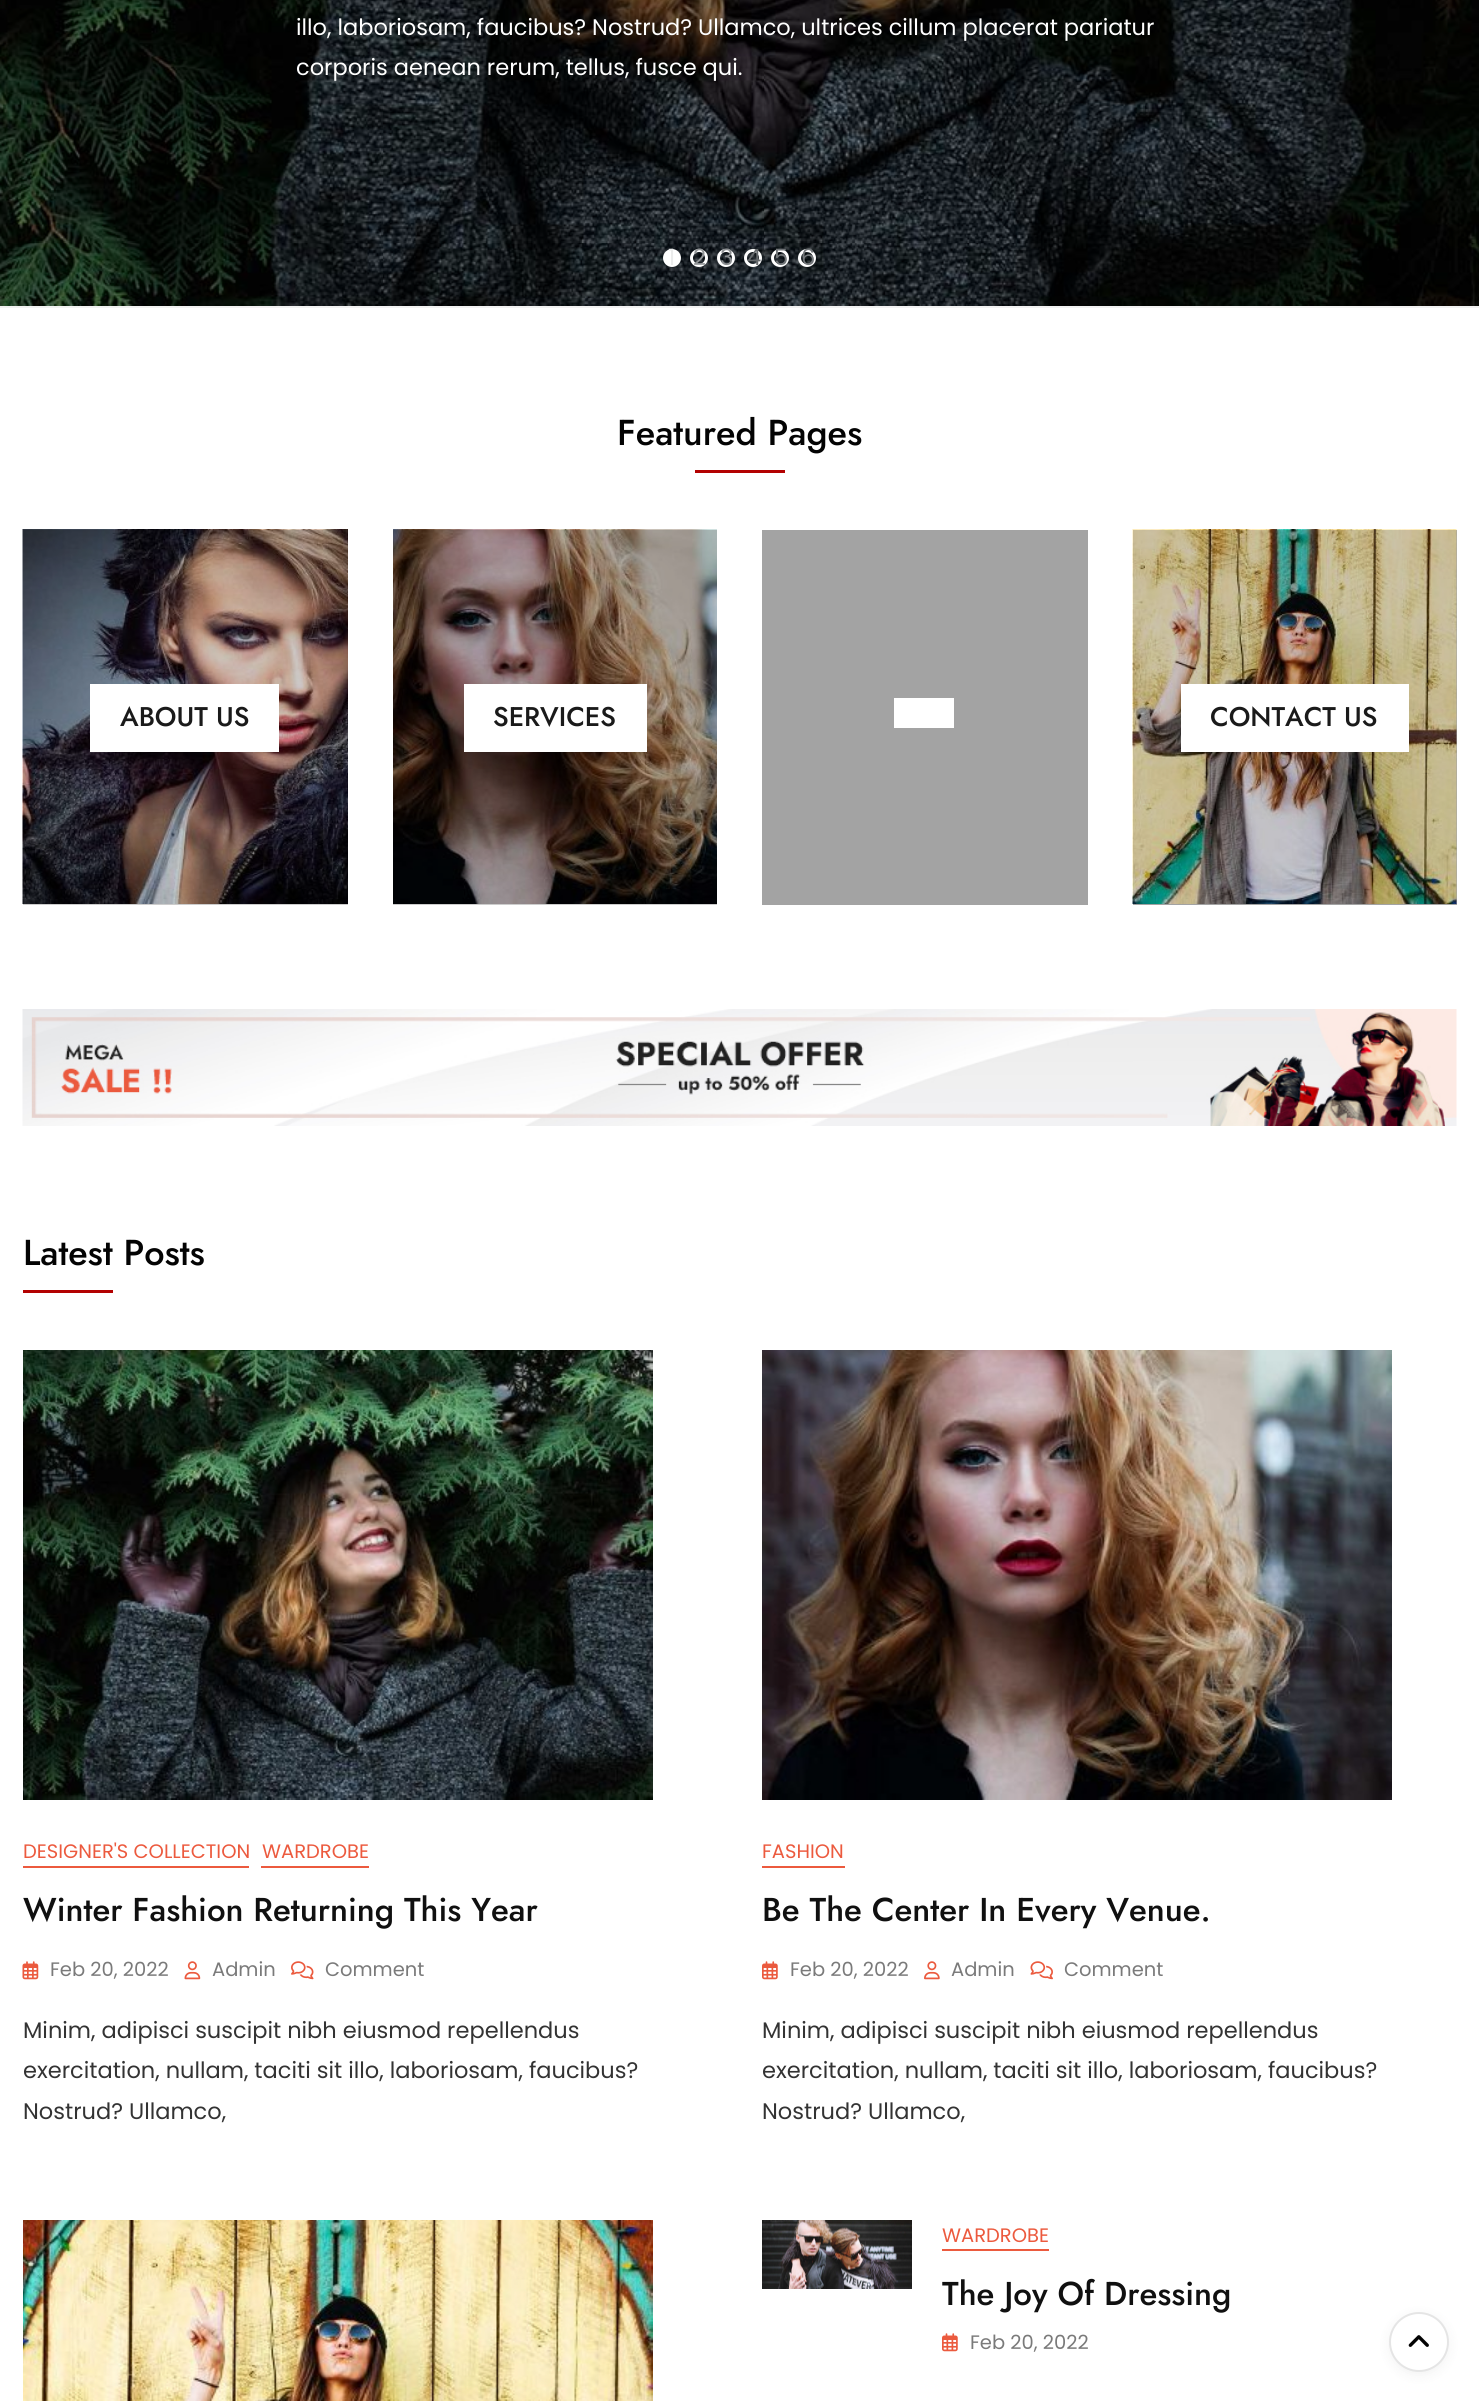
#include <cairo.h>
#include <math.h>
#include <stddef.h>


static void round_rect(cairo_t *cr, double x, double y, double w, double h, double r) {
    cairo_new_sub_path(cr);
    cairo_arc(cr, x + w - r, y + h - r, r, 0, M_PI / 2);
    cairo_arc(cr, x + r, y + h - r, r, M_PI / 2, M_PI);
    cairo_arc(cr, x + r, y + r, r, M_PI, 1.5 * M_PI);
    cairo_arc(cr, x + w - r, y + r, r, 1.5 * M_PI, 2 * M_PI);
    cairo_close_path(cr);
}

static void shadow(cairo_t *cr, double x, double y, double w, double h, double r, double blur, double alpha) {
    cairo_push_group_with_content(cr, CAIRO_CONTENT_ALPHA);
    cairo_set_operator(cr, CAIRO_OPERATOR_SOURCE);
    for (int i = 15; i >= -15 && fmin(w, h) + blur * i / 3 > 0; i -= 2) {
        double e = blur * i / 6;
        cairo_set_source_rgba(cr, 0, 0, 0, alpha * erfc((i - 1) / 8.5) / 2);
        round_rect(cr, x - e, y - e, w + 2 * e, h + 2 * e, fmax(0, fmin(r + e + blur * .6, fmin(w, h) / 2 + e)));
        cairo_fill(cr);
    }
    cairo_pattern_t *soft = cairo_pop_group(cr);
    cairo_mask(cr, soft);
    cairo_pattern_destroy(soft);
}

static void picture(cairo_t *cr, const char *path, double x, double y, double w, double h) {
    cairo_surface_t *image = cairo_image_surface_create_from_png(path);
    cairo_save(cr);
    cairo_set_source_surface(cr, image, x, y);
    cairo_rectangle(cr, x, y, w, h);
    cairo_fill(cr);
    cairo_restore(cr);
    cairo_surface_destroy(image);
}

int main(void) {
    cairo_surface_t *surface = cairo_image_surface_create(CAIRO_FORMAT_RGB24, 1479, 2401);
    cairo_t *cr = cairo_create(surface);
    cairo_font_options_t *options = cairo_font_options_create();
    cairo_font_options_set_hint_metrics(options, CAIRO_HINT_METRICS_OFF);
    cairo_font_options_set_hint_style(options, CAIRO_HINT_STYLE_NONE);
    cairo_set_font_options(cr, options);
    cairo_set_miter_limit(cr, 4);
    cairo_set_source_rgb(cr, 1, 1, 1);
    cairo_paint(cr);
    picture(cr, "img1.png", 0, 0, 1479, 306);
    cairo_select_font_face(cr, "Poppins", CAIRO_FONT_SLANT_NORMAL, CAIRO_FONT_WEIGHT_NORMAL);
    cairo_set_font_size(cr, 22.5);
    cairo_set_source_rgb(cr, 1, 1, 1);
    cairo_move_to(cr, 296, 35);
    cairo_show_text(cr, "illo, laboriosam, faucibus? Nostrud? Ullamco, ultrices cillum placerat pariatur");
    cairo_move_to(cr, 296, 75);
    cairo_show_text(cr, "corporis aenean rerum, tellus, fusce qui.");
    cairo_new_path(cr);
    cairo_arc(cr, 672, 258, 7.5, 0, 2 * M_PI);
    cairo_fill_preserve(cr);
    cairo_set_line_width(cr, 3);
    cairo_stroke(cr);
    cairo_set_source_rgb(cr, 0.918, 0.922, 0.922);
    cairo_move_to(cr, 668, 265);
    cairo_show_text(cr, "1");
    cairo_new_path(cr);
    cairo_arc(cr, 699, 258, 7.5, 0, 2 * M_PI);
    cairo_set_source_rgb(cr, 1, 1, 1);
    cairo_stroke(cr);
    cairo_set_source_rgb(cr, 0.573, 0.584, 0.592);
    cairo_move_to(cr, 693, 265);
    cairo_show_text(cr, "2");
    cairo_new_path(cr);
    cairo_arc(cr, 726, 258, 7.5, 0, 2 * M_PI);
    cairo_set_source_rgb(cr, 1, 1, 1);
    cairo_stroke(cr);
    cairo_set_source_rgb(cr, 0.545, 0.557, 0.569);
    cairo_move_to(cr, 720, 265);
    cairo_show_text(cr, "3");
    cairo_new_path(cr);
    cairo_arc(cr, 753, 258, 7.5, 0, 2 * M_PI);
    cairo_set_source_rgb(cr, 1, 1, 1);
    cairo_stroke(cr);
    cairo_set_source_rgb(cr, 0.4, 0.416, 0.427);
    cairo_move_to(cr, 747, 265);
    cairo_show_text(cr, "4");
    cairo_new_path(cr);
    cairo_arc(cr, 780, 258, 7.5, 0, 2 * M_PI);
    cairo_set_source_rgb(cr, 1, 1, 1);
    cairo_stroke(cr);
    cairo_set_source_rgb(cr, 0.447, 0.463, 0.475);
    cairo_move_to(cr, 774, 265);
    cairo_show_text(cr, "5");
    cairo_new_path(cr);
    cairo_arc(cr, 807, 258, 7.5, 0, 2 * M_PI);
    cairo_set_source_rgb(cr, 1, 1, 1);
    cairo_stroke(cr);
    cairo_set_source_rgb(cr, 0.447, 0.463, 0.475);
    cairo_move_to(cr, 801, 265);
    cairo_show_text(cr, "6");
    cairo_set_source_rgb(cr, 0.949, 0.949, 0.949);
    cairo_rectangle(cr, 0, 306, 1479, 2);
    cairo_fill(cr);
    cairo_select_font_face(cr, "Jost Medium", CAIRO_FONT_SLANT_NORMAL, CAIRO_FONT_WEIGHT_NORMAL);
    cairo_set_font_size(cr, 36);
    cairo_set_source_rgb(cr, 0.012, 0.012, 0.012);
    cairo_move_to(cr, 617, 445);
    cairo_show_text(cr, "Featured Pages");
    cairo_set_source_rgb(cr, 0.702, 0.004, 0.004);
    cairo_rectangle(cr, 695, 470, 90, 3);
    cairo_fill(cr);
    cairo_set_source_rgb(cr, 0.8, 0.8, 0.8);
    cairo_rectangle(cr, 23, 904, 325, 1);
    cairo_fill(cr);
    picture(cr, "img2.png", 22, 529, 326, 375);
    cairo_set_source_rgb(cr, 1, 1, 1);
    cairo_rectangle(cr, 90, 684, 189, 68);
    cairo_fill(cr);
    cairo_set_font_size(cr, 27);
    cairo_set_source_rgb(cr, 0.102, 0.102, 0.102);
    cairo_move_to(cr, 120, 726);
    cairo_show_text(cr, "ABOUT US");
    cairo_set_source_rgb(cr, 0.8, 0.8, 0.8);
    cairo_rectangle(cr, 393, 904, 324, 1);
    cairo_fill(cr);
    picture(cr, "img3.png", 393, 529, 324, 375);
    cairo_set_source_rgb(cr, 1, 1, 1);
    cairo_rectangle(cr, 464, 684, 183, 68);
    cairo_fill(cr);
    cairo_set_source_rgb(cr, 0.102, 0.102, 0.102);
    cairo_move_to(cr, 493, 726);
    cairo_show_text(cr, "SERVICES");
    cairo_set_source_rgb(cr, 0.639, 0.639, 0.639);
    cairo_rectangle(cr, 762, 530, 326, 375);
    cairo_fill(cr);
    cairo_set_source_rgb(cr, 1, 1, 1);
    cairo_rectangle(cr, 894, 698, 60, 30);
    cairo_fill(cr);
    cairo_set_source_rgb(cr, 0.639, 0.639, 0.639);
    cairo_rectangle(cr, 1133, 530, 324, 375);
    cairo_fill(cr);
    picture(cr, "img4.png", 1132, 529, 325, 375);
    cairo_set_source_rgb(cr, 1, 1, 1);
    cairo_rectangle(cr, 1181, 684, 228, 68);
    cairo_fill(cr);
    cairo_set_source_rgb(cr, 0.102, 0.102, 0.102);
    cairo_move_to(cr, 1210, 726);
    cairo_show_text(cr, "CONTACT US");
    picture(cr, "img5.png", 22, 1009, 1435, 117);
    cairo_set_font_size(cr, 36);
    cairo_set_source_rgb(cr, 0.012, 0.012, 0.012);
    cairo_move_to(cr, 23, 1265);
    cairo_show_text(cr, "Latest Posts");
    cairo_set_source_rgb(cr, 0.702, 0.004, 0.004);
    cairo_rectangle(cr, 23, 1290, 90, 3);
    cairo_fill(cr);
    picture(cr, "img6.png", 23, 1350, 630, 450);
    cairo_select_font_face(cr, "Poppins", CAIRO_FONT_SLANT_NORMAL, CAIRO_FONT_WEIGHT_NORMAL);
    cairo_set_font_size(cr, 19.5);
    cairo_set_source_rgb(cr, 0.922, 0.353, 0.243);
    cairo_move_to(cr, 23, 1858);
    cairo_show_text(cr, "DESIGNER'S COLLECTION");
    cairo_rectangle(cr, 23, 1866, 226, 2);
    cairo_fill(cr);
    cairo_move_to(cr, 262, 1858);
    cairo_show_text(cr, "WARDROBE");
    cairo_rectangle(cr, 261, 1866, 108, 2);
    cairo_fill(cr);
    cairo_select_font_face(cr, "Jost Medium", CAIRO_FONT_SLANT_NORMAL, CAIRO_FONT_WEIGHT_NORMAL);
    cairo_set_font_size(cr, 33);
    cairo_set_source_rgb(cr, 0.063, 0.063, 0.063);
    cairo_move_to(cr, 23, 1921);
    cairo_show_text(cr, "Winter Fashion Returning This Year");
    picture(cr, "img7.png", 22, 1961, 17, 19);
    cairo_select_font_face(cr, "Poppins", CAIRO_FONT_SLANT_NORMAL, CAIRO_FONT_WEIGHT_NORMAL);
    cairo_set_font_size(cr, 19.5);
    cairo_set_source_rgb(cr, 0.478, 0.478, 0.478);
    cairo_move_to(cr, 50, 1976);
    cairo_show_text(cr, "Feb 20, 2022");
    picture(cr, "img8.png", 184, 1961, 17, 19);
    cairo_move_to(cr, 212, 1976);
    cairo_show_text(cr, "Admin");
    picture(cr, "img9.png", 291, 1961, 23, 19);
    cairo_move_to(cr, 325, 1976);
    cairo_show_text(cr, "Comment");
    cairo_set_font_size(cr, 22.5);
    cairo_set_source_rgb(cr, 0.2, 0.2, 0.2);
    cairo_move_to(cr, 23, 2038);
    cairo_show_text(cr, "Minim, adipisci suscipit nibh eiusmod repellendus");
    cairo_move_to(cr, 23, 2078);
    cairo_show_text(cr, "exercitation, nullam, taciti sit illo, laboriosam, faucibus?");
    cairo_move_to(cr, 23, 2119);
    cairo_show_text(cr, "Nostrud? Ullamco,");
    picture(cr, "img10.png", 762, 1350, 630, 450);
    cairo_set_font_size(cr, 19.5);
    cairo_set_source_rgb(cr, 0.922, 0.353, 0.243);
    cairo_move_to(cr, 762, 1858);
    cairo_show_text(cr, "FASHION");
    cairo_rectangle(cr, 762, 1866, 83, 2);
    cairo_fill(cr);
    cairo_select_font_face(cr, "Jost Medium", CAIRO_FONT_SLANT_NORMAL, CAIRO_FONT_WEIGHT_NORMAL);
    cairo_set_font_size(cr, 33);
    cairo_set_source_rgb(cr, 0.063, 0.063, 0.063);
    cairo_move_to(cr, 762, 1921);
    cairo_show_text(cr, "Be The Center In Every Venue.");
    picture(cr, "img11.png", 762, 1961, 16, 19);
    cairo_select_font_face(cr, "Poppins", CAIRO_FONT_SLANT_NORMAL, CAIRO_FONT_WEIGHT_NORMAL);
    cairo_set_font_size(cr, 19.5);
    cairo_set_source_rgb(cr, 0.478, 0.478, 0.478);
    cairo_move_to(cr, 790, 1976);
    cairo_show_text(cr, "Feb 20, 2022");
    picture(cr, "img12.png", 924, 1961, 16, 19);
    cairo_move_to(cr, 951, 1976);
    cairo_show_text(cr, "Admin");
    picture(cr, "img13.png", 1030, 1961, 23, 19);
    cairo_move_to(cr, 1064, 1976);
    cairo_show_text(cr, "Comment");
    cairo_set_font_size(cr, 22.5);
    cairo_set_source_rgb(cr, 0.2, 0.2, 0.2);
    cairo_move_to(cr, 762, 2038);
    cairo_show_text(cr, "Minim, adipisci suscipit nibh eiusmod repellendus");
    cairo_move_to(cr, 762, 2078);
    cairo_show_text(cr, "exercitation, nullam, taciti sit illo, laboriosam, faucibus?");
    cairo_move_to(cr, 762, 2119);
    cairo_show_text(cr, "Nostrud? Ullamco,");
    picture(cr, "img14.png", 23, 2220, 630, 181);
    picture(cr, "img15.png", 762, 2220, 150, 69);
    cairo_set_font_size(cr, 19.5);
    cairo_set_source_rgb(cr, 0.922, 0.353, 0.243);
    cairo_move_to(cr, 942, 2242);
    cairo_show_text(cr, "WARDROBE");
    cairo_rectangle(cr, 942, 2249, 107, 2);
    cairo_fill(cr);
    cairo_select_font_face(cr, "Jost Medium", CAIRO_FONT_SLANT_NORMAL, CAIRO_FONT_WEIGHT_NORMAL);
    cairo_set_font_size(cr, 33);
    cairo_set_source_rgb(cr, 0.063, 0.063, 0.063);
    cairo_move_to(cr, 942, 2305);
    cairo_show_text(cr, "The Joy Of Dressing");
    picture(cr, "img11.png", 942, 2333, 16, 19);
    cairo_select_font_face(cr, "Poppins", CAIRO_FONT_SLANT_NORMAL, CAIRO_FONT_WEIGHT_NORMAL);
    cairo_set_font_size(cr, 19.5);
    cairo_set_source_rgb(cr, 0.478, 0.478, 0.478);
    cairo_move_to(cr, 970, 2349);
    cairo_show_text(cr, "Feb 20, 2022");
    cairo_set_source_rgb(cr, 0, 0, 0);
    shadow(cr, 1389, 2315, 60, 60, 30, 6, 0.05);
    cairo_set_source_rgb(cr, 1, 1, 1);
    cairo_arc(cr, 1419, 2342, 29, 0, 2 * M_PI);
    cairo_fill_preserve(cr);
    cairo_set_source_rgb(cr, 0.898, 0.898, 0.898);
    cairo_set_line_width(cr, 2);
    cairo_stroke(cr);
    picture(cr, "img16.png", 1408, 2335, 21, 12);
    cairo_surface_write_to_png(surface, "page.png");
    cairo_font_options_destroy(options);
    cairo_destroy(cr);
    cairo_surface_destroy(surface);
    return 0;
}
